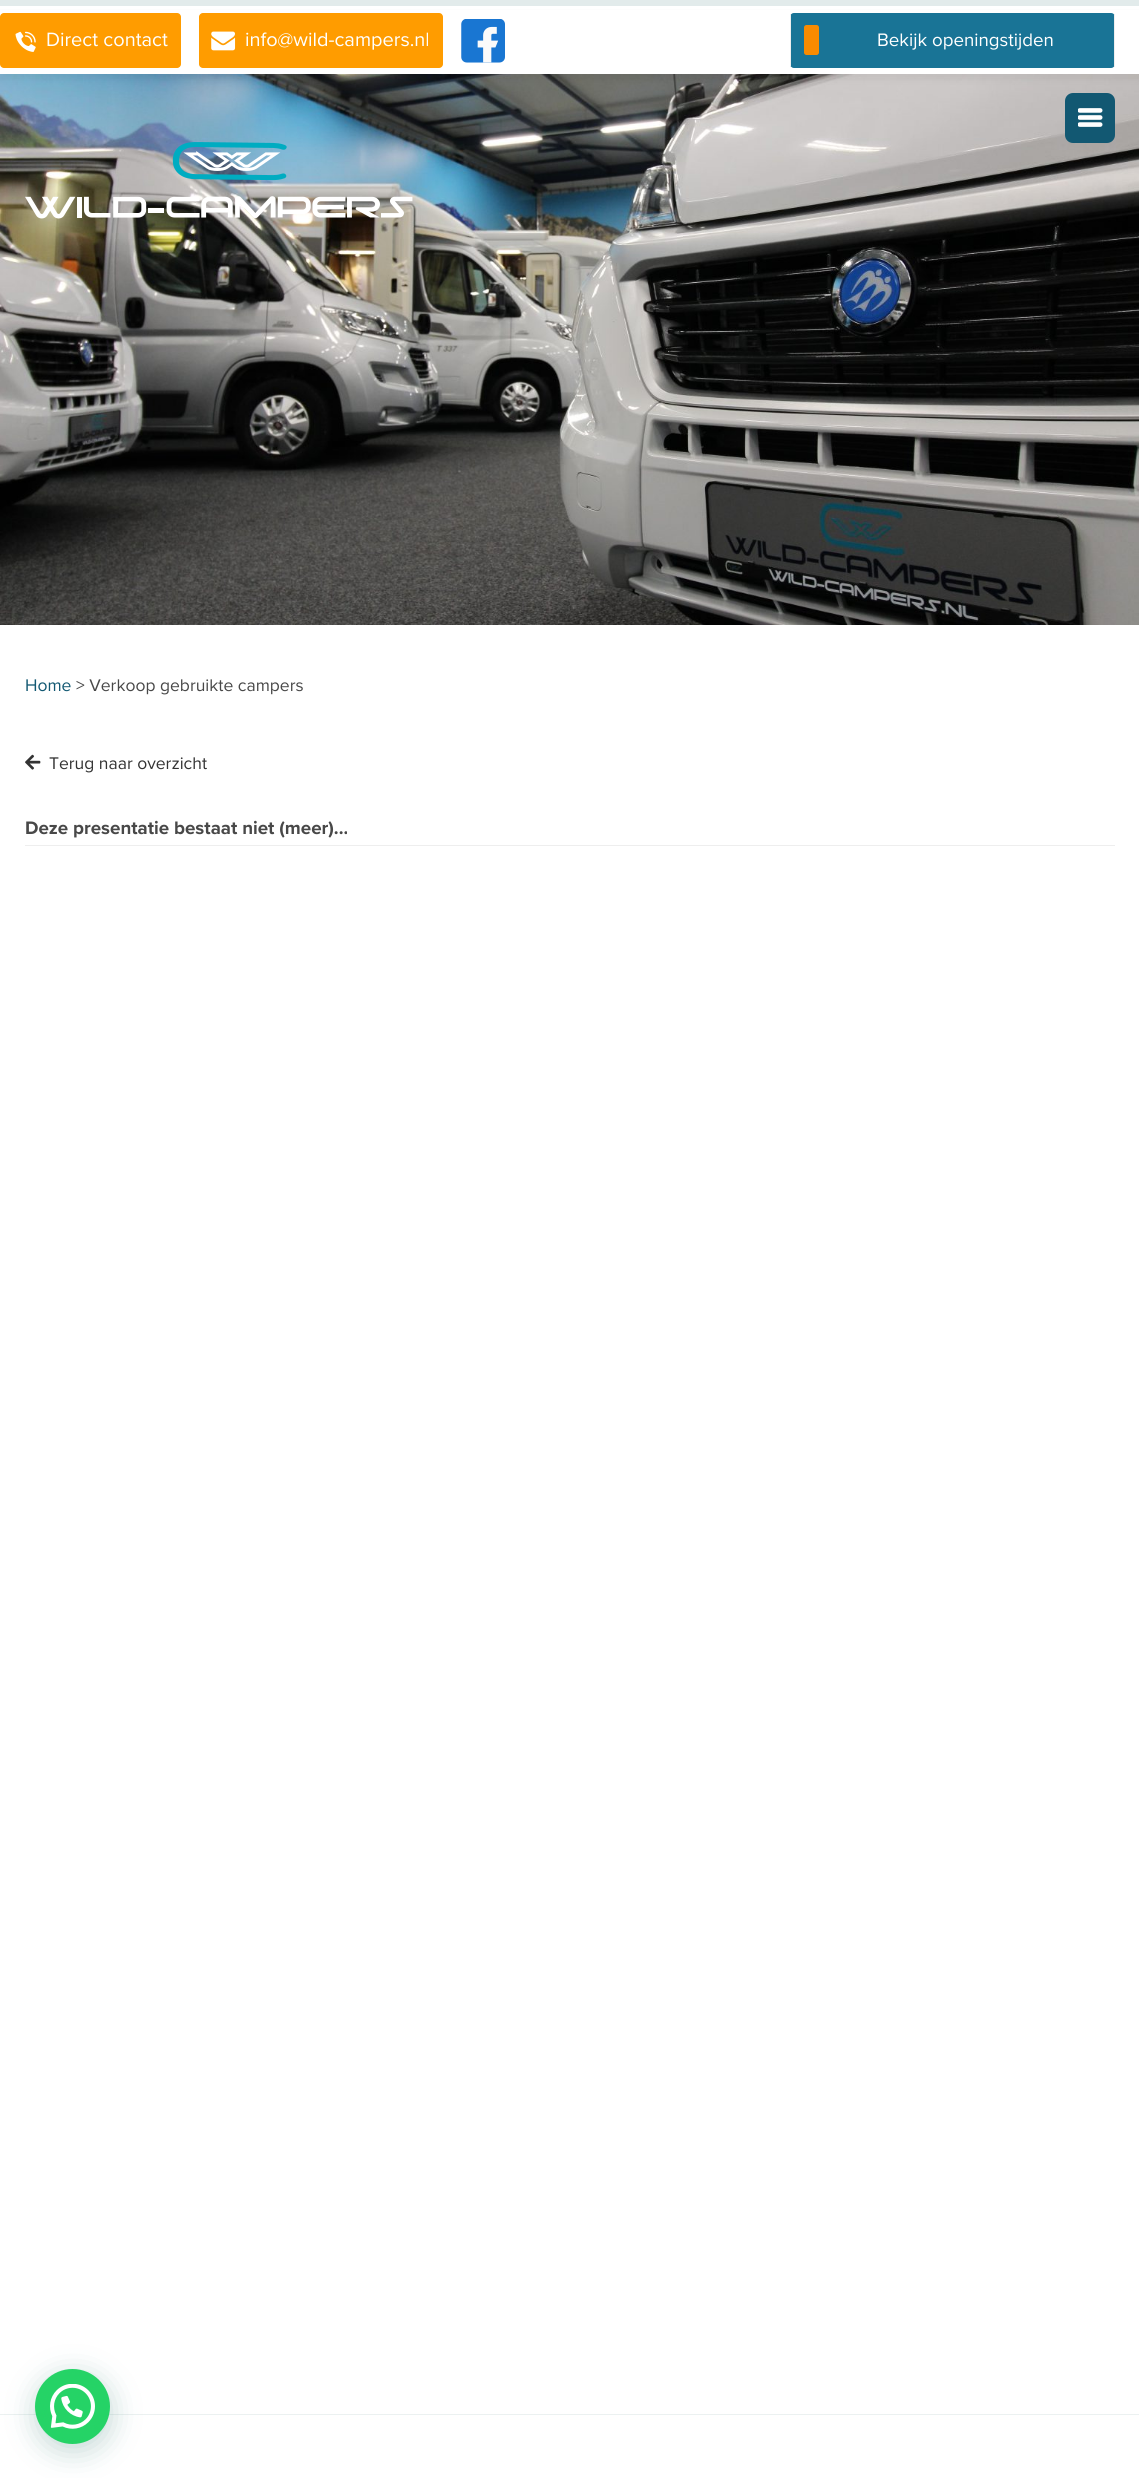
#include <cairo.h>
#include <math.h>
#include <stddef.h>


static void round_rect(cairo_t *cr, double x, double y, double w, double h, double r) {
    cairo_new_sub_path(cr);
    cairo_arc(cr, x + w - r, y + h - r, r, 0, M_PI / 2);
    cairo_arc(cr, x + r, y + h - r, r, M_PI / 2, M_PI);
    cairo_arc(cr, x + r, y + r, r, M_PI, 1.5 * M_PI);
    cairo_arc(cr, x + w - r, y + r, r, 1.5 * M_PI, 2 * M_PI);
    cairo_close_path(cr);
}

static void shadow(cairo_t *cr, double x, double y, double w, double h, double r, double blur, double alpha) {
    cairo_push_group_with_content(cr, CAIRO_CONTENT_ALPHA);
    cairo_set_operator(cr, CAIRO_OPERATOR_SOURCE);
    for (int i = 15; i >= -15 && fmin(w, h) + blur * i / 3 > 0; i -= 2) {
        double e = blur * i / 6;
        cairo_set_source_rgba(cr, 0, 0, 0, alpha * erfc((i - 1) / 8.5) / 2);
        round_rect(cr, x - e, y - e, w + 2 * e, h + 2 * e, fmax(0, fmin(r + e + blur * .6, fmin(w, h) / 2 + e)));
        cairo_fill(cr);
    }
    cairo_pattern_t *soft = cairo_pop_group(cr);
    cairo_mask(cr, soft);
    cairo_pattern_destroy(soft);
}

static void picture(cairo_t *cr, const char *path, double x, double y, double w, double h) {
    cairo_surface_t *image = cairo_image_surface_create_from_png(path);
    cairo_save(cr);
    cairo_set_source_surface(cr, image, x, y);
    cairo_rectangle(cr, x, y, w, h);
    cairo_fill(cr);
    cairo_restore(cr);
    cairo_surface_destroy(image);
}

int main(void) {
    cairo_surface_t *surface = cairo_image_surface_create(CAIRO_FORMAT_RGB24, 1139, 2478);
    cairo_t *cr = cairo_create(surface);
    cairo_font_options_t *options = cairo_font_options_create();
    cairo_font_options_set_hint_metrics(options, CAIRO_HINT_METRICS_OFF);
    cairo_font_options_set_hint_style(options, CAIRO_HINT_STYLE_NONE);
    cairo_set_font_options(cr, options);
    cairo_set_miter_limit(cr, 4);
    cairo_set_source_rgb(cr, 1, 1, 1);
    cairo_paint(cr);
    cairo_set_source_rgb(cr, 0.886, 0.918, 0.918);
    cairo_rectangle(cr, 0, 0, 1139, 6);
    cairo_fill(cr);
    picture(cr, "img1.png", 0, 74, 1139, 551);
    cairo_set_source_rgb(cr, 0, 0, 0);
    shadow(cr, 0, 13, 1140, 67, 0, 3, 0.05);
    cairo_set_source_rgb(cr, 1, 1, 1);
    cairo_rectangle(cr, 0, 10, 1139, 64);
    cairo_fill(cr);
    cairo_set_source_rgb(cr, 1, 0.612, 0);
    round_rect(cr, 0, 13, 181, 55, 4);
    cairo_fill(cr);
    picture(cr, "img2.png", 15, 31, 21, 21);
    cairo_select_font_face(cr, "Proxima Nova", CAIRO_FONT_SLANT_NORMAL, CAIRO_FONT_WEIGHT_NORMAL);
    cairo_set_font_size(cr, 20);
    cairo_set_source_rgb(cr, 1, 1, 1);
    cairo_move_to(cr, 46, 46);
    cairo_show_text(cr, "Direct contact");
    cairo_set_source_rgb(cr, 1, 0.612, 0);
    round_rect(cr, 199, 13, 244, 55, 4);
    cairo_fill(cr);
    picture(cr, "img3.png", 211, 31, 25, 20);
    cairo_set_source_rgb(cr, 1, 1, 1);
    cairo_move_to(cr, 245, 46);
    cairo_show_text(cr, "info@wild-campers.nl");
    picture(cr, "img4.png", 461, 19, 44, 44);
    cairo_set_source_rgb(cr, 0.098, 0.455, 0.588);
    round_rect(cr, 790, 13, 325, 55, 4);
    cairo_fill(cr);
    cairo_set_source_rgb(cr, 0.933, 0.933, 0.933);
    cairo_rectangle(cr, 1114, 15, 1, 51);
    cairo_fill(cr);
    cairo_rectangle(cr, 790, 15, 1, 51);
    cairo_fill(cr);
    cairo_set_source_rgb(cr, 0.973, 0.545, 0);
    round_rect(cr, 804, 25, 15, 30, 2.5);
    cairo_fill(cr);
    cairo_set_font_size(cr, 18.75);
    cairo_set_source_rgb(cr, 1, 1, 1);
    cairo_move_to(cr, 877, 46);
    cairo_show_text(cr, "Bekijk openingstijden");
    cairo_set_source_rgb(cr, 0.071, 0.345, 0.447);
    round_rect(cr, 1065, 93, 50, 50, 8);
    cairo_fill(cr);
    picture(cr, "img5.png", 1078, 108, 25, 19);
    picture(cr, "img6.png", 25, 142, 388, 77);
    cairo_set_font_size(cr, 17.5);
    cairo_move_to(cr, 25, 691);
    cairo_show_text(cr, "Home");
    cairo_set_source_rgb(cr, 0.282, 0.282, 0.282);
    cairo_move_to(cr, 76, 691);
    cairo_show_text(cr, "> Verkoop gebruikte campers");
    picture(cr, "img7.png", 25, 754, 16, 16);
    cairo_set_source_rgb(cr, 0.2, 0.2, 0.2);
    cairo_move_to(cr, 49, 769);
    cairo_show_text(cr, "Terug naar overzicht");
    cairo_set_source_rgb(cr, 0.933, 0.933, 0.933);
    cairo_rectangle(cr, 25, 845, 1090, 1);
    cairo_fill(cr);
    cairo_select_font_face(cr, "Proxima Nova", CAIRO_FONT_SLANT_NORMAL, CAIRO_FONT_WEIGHT_BOLD);
    cairo_set_font_size(cr, 18.75);
    cairo_set_source_rgb(cr, 0.282, 0.282, 0.282);
    cairo_move_to(cr, 25, 834);
    cairo_show_text(cr, "Deze presentatie bestaat niet (meer)...");
    cairo_set_source_rgb(cr, 0.925, 0.945, 0.945);
    cairo_rectangle(cr, 0, 2414, 1139, 1);
    cairo_fill(cr);
    cairo_set_source_rgb(cr, 0.027, 0.369, 0.329);
    shadow(cr, 36, 2376, 75, 75, 37.5, 15, 0.24);
    cairo_set_source_rgb(cr, 0.145, 0.827, 0.4);
    cairo_arc(cr, 72.5, 2406.5, 37.5, 0, 2 * M_PI);
    cairo_fill(cr);
    picture(cr, "img8.png", 50, 2384, 45, 45);
    cairo_surface_write_to_png(surface, "page.png");
    cairo_font_options_destroy(options);
    cairo_destroy(cr);
    cairo_surface_destroy(surface);
    return 0;
}
